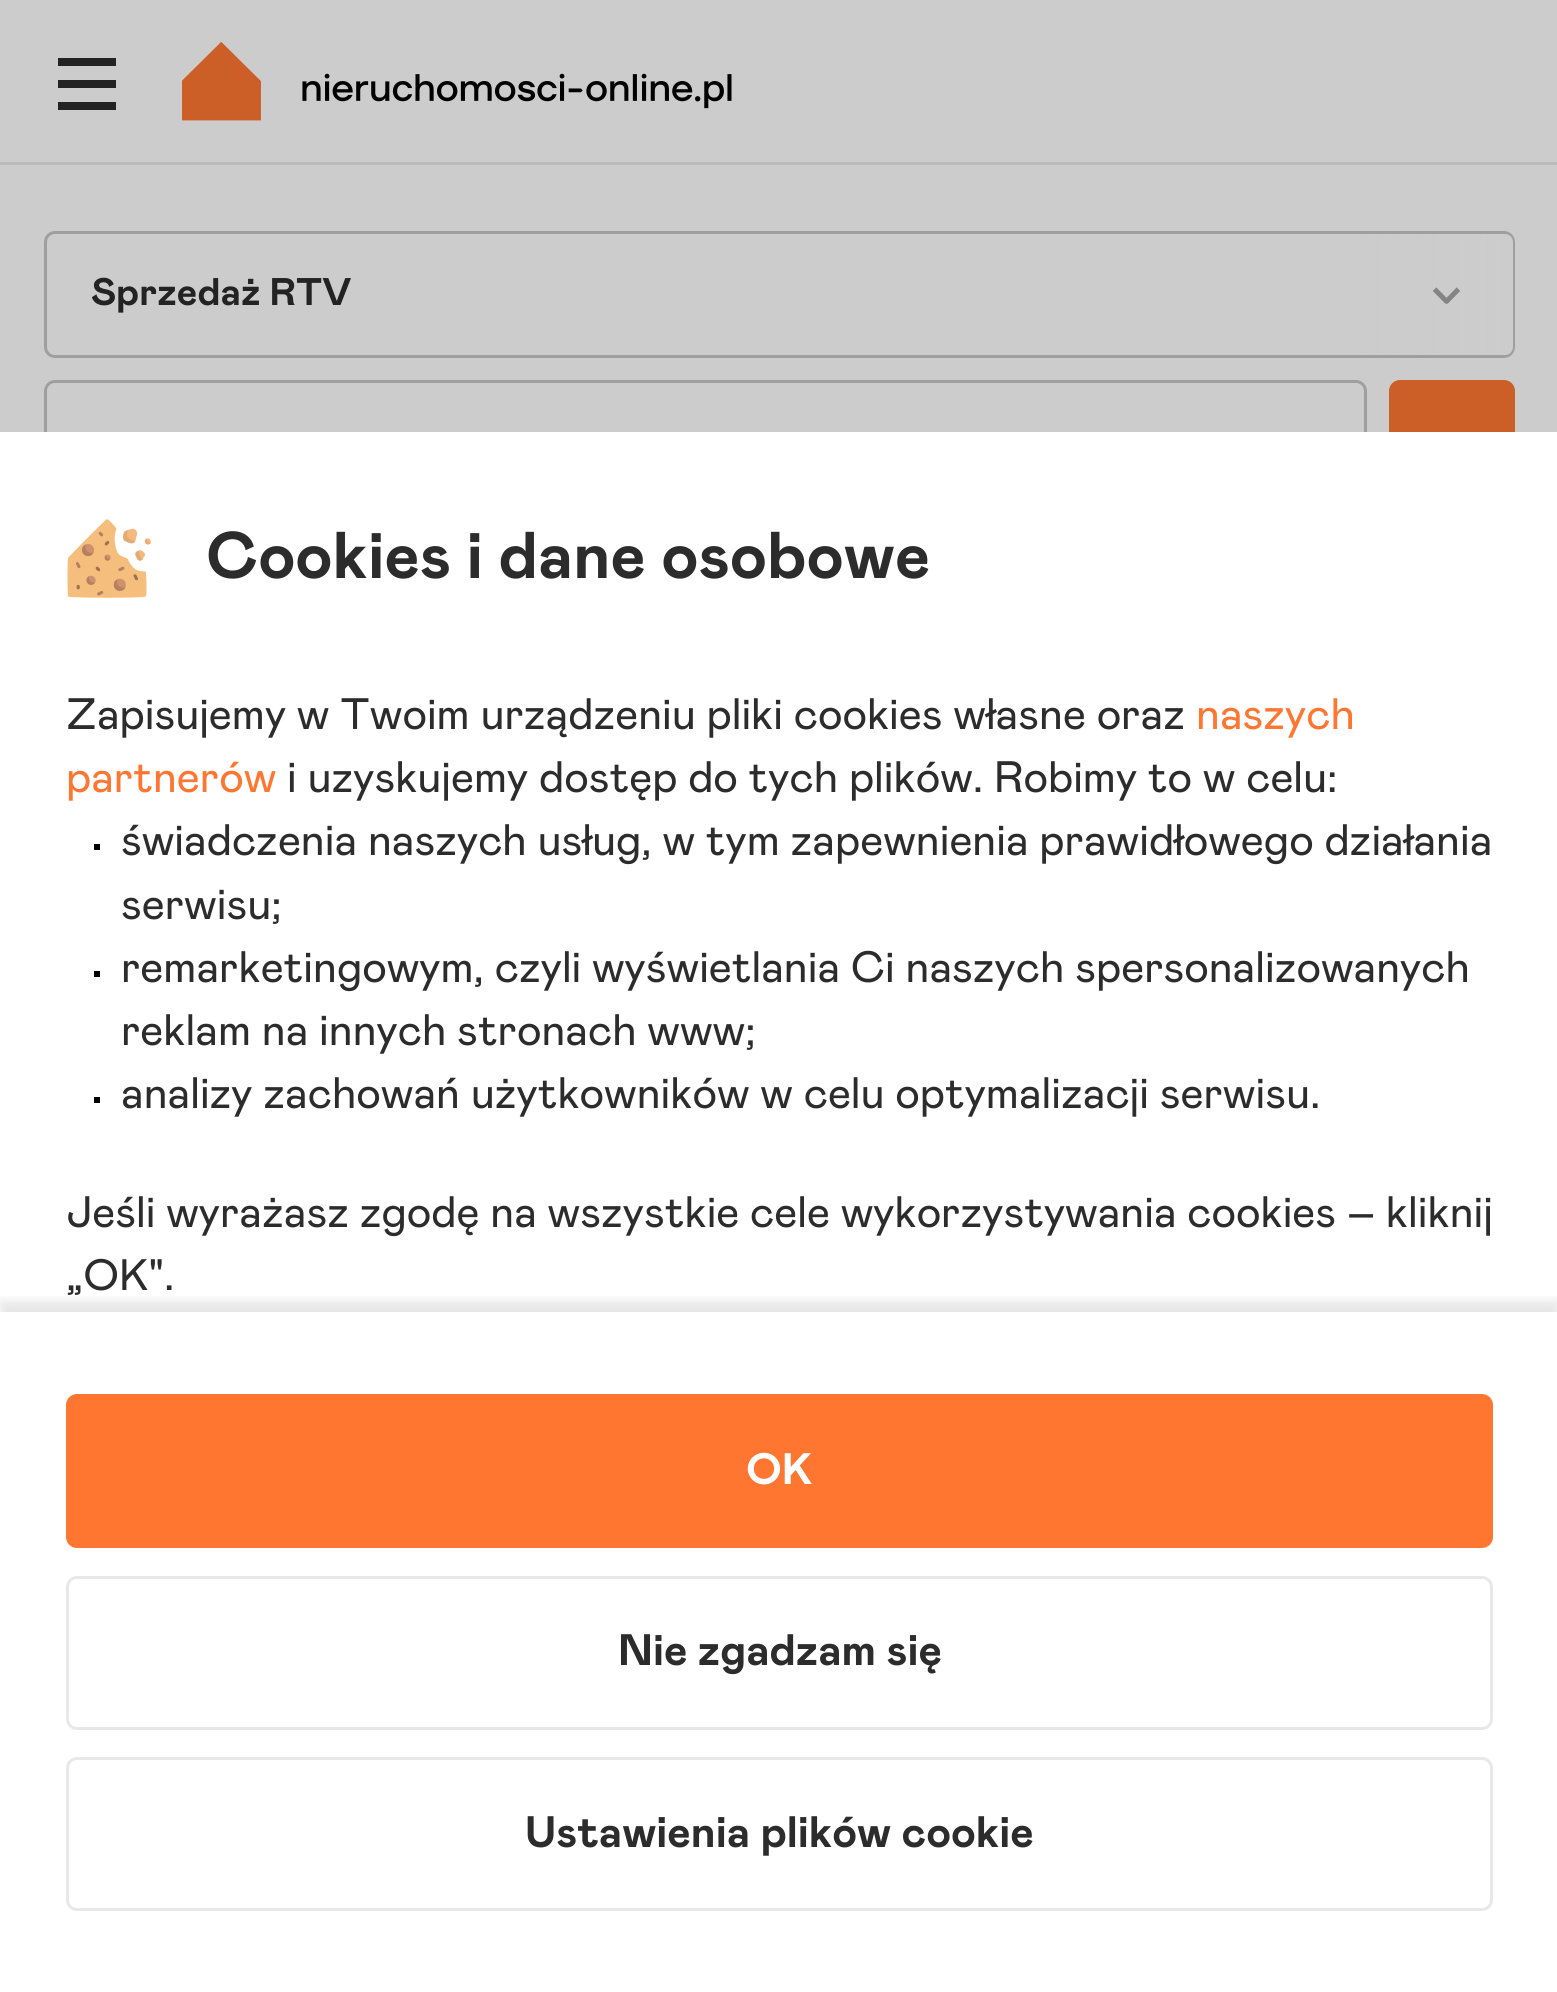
#include <cairo.h>
#include <math.h>
#include <stddef.h>


static void round_rect(cairo_t *cr, double x, double y, double w, double h, double r) {
    cairo_new_sub_path(cr);
    cairo_arc(cr, x + w - r, y + h - r, r, 0, M_PI / 2);
    cairo_arc(cr, x + r, y + h - r, r, M_PI / 2, M_PI);
    cairo_arc(cr, x + r, y + r, r, M_PI, 1.5 * M_PI);
    cairo_arc(cr, x + w - r, y + r, r, 1.5 * M_PI, 2 * M_PI);
    cairo_close_path(cr);
}

static void shadow(cairo_t *cr, double x, double y, double w, double h, double r, double blur, double alpha) {
    cairo_push_group_with_content(cr, CAIRO_CONTENT_ALPHA);
    cairo_set_operator(cr, CAIRO_OPERATOR_SOURCE);
    for (int i = 15; i >= -15 && fmin(w, h) + blur * i / 3 > 0; i -= 2) {
        double e = blur * i / 6;
        cairo_set_source_rgba(cr, 0, 0, 0, alpha * erfc((i - 1) / 8.5) / 2);
        round_rect(cr, x - e, y - e, w + 2 * e, h + 2 * e, fmax(0, fmin(r + e + blur * .6, fmin(w, h) / 2 + e)));
        cairo_fill(cr);
    }
    cairo_pattern_t *soft = cairo_pop_group(cr);
    cairo_mask(cr, soft);
    cairo_pattern_destroy(soft);
}

static void picture(cairo_t *cr, const char *path, double x, double y, double w, double h) {
    cairo_surface_t *image = cairo_image_surface_create_from_png(path);
    cairo_save(cr);
    cairo_set_source_surface(cr, image, x, y);
    cairo_rectangle(cr, x, y, w, h);
    cairo_fill(cr);
    cairo_restore(cr);
    cairo_surface_destroy(image);
}

int main(void) {
    cairo_surface_t *surface = cairo_image_surface_create(CAIRO_FORMAT_RGB24, 1557, 1992);
    cairo_t *cr = cairo_create(surface);
    cairo_font_options_t *options = cairo_font_options_create();
    cairo_font_options_set_hint_metrics(options, CAIRO_HINT_METRICS_OFF);
    cairo_font_options_set_hint_style(options, CAIRO_HINT_STYLE_NONE);
    cairo_set_font_options(cr, options);
    cairo_set_miter_limit(cr, 4);
    cairo_pattern_t *gradient;
    cairo_set_source_rgb(cr, 0.8, 0.8, 0.8);
    cairo_paint(cr);
    cairo_set_source_rgb(cr, 0.729, 0.729, 0.729);
    cairo_rectangle(cr, 0, 162, 1557, 3);
    cairo_fill(cr);
    cairo_set_source_rgb(cr, 0.137, 0.137, 0.137);
    cairo_rectangle(cr, 58, 58, 58, 8);
    cairo_fill(cr);
    cairo_rectangle(cr, 58, 80, 58, 8);
    cairo_fill(cr);
    cairo_rectangle(cr, 58, 102, 58, 8);
    cairo_fill(cr);
    picture(cr, "img1.png", 182, 41, 550, 80);
    round_rect(cr, 45.5, 232.5, 1468, 124, 9.5);
    cairo_set_source_rgb(cr, 0.624, 0.624, 0.624);
    cairo_set_line_width(cr, 3);
    cairo_stroke(cr);
    cairo_select_font_face(cr, "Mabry", CAIRO_FONT_SLANT_NORMAL, CAIRO_FONT_WEIGHT_BOLD);
    cairo_set_font_size(cr, 38.5);
    cairo_set_source_rgb(cr, 0.137, 0.137, 0.137);
    cairo_move_to(cr, 91, 305);
    cairo_show_text(cr, "Sprzedaż RTV");
    gradient = cairo_pattern_create_linear(1513, 294, 1348, 294);
    cairo_pattern_add_color_stop_rgba(gradient, 0, 0.8, 0.8, 0.8, 1);
    cairo_pattern_add_color_stop_rgba(gradient, 1, 0.8, 0.8, 0.8, 0);
    cairo_set_source(cr, gradient);
    cairo_pattern_destroy(gradient);
    cairo_new_path(cr);
    cairo_move_to(cr, 1348, 234);
    cairo_line_to(cr, 1505, 234);
    cairo_curve_to(cr, 1509.5, 234, 1513, 237.5, 1513, 242);
    cairo_line_to(cr, 1513, 347);
    cairo_curve_to(cr, 1513, 351.5, 1509.5, 355, 1505, 355);
    cairo_line_to(cr, 1348, 355);
    cairo_close_path(cr);
    cairo_fill(cr);
    picture(cr, "img2.png", 1433, 287, 27, 17);
    round_rect(cr, 45.5, 381.5, 1320, 123, 9.5);
    cairo_set_source_rgb(cr, 0.624, 0.624, 0.624);
    cairo_stroke(cr);
    cairo_set_source_rgb(cr, 0.8, 0.369, 0.153);
    round_rect(cr, 1389, 380, 126, 126, 11);
    cairo_fill(cr);
    cairo_set_source_rgb(cr, 1, 1, 1);
    cairo_rectangle(cr, 0, 432, 1557, 1560);
    cairo_fill(cr);
    picture(cr, "img3.png", 67, 519, 84, 79);
    cairo_set_font_size(cr, 66);
    cairo_set_source_rgb(cr, 0.173, 0.173, 0.173);
    cairo_move_to(cr, 206, 578);
    cairo_show_text(cr, "Cookies i dane osobowe");
    cairo_select_font_face(cr, "Mabry", CAIRO_FONT_SLANT_NORMAL, CAIRO_FONT_WEIGHT_NORMAL);
    cairo_set_font_size(cr, 44);
    cairo_move_to(cr, 66, 729);
    cairo_show_text(cr, "Zapisujemy w Twoim urządzeniu pliki cookies własne oraz");
    cairo_set_source_rgb(cr, 1, 0.463, 0.192);
    cairo_move_to(cr, 1196, 729);
    cairo_show_text(cr, "naszych");
    cairo_move_to(cr, 66, 792);
    cairo_show_text(cr, "partnerów");
    cairo_set_source_rgb(cr, 0.173, 0.173, 0.173);
    cairo_move_to(cr, 287, 792);
    cairo_show_text(cr, "i uzyskujemy dostęp do tych plików. Robimy to w celu:");
    cairo_set_source_rgb(cr, 0, 0, 0);
    cairo_rectangle(cr, 94, 844, 6, 6);
    cairo_fill(cr);
    cairo_set_source_rgb(cr, 0.173, 0.173, 0.173);
    cairo_move_to(cr, 121, 855);
    cairo_show_text(cr, "świadczenia naszych usług, w tym zapewnienia prawidłowego działania");
    cairo_move_to(cr, 121, 919);
    cairo_show_text(cr, "serwisu;");
    cairo_set_source_rgb(cr, 0, 0, 0);
    cairo_rectangle(cr, 94, 971, 6, 6);
    cairo_fill(cr);
    cairo_set_source_rgb(cr, 0.173, 0.173, 0.173);
    cairo_move_to(cr, 121, 982);
    cairo_show_text(cr, "remarketingowym, czyli wyświetlania Ci naszych spersonalizowanych");
    cairo_move_to(cr, 121, 1045);
    cairo_show_text(cr, "reklam na innych stronach www;");
    cairo_set_source_rgb(cr, 0, 0, 0);
    cairo_rectangle(cr, 94, 1097, 6, 6);
    cairo_fill(cr);
    cairo_set_source_rgb(cr, 0.173, 0.173, 0.173);
    cairo_move_to(cr, 121, 1108);
    cairo_show_text(cr, "analizy zachowań użytkowników w celu optymalizacji serwisu.");
    cairo_move_to(cr, 66, 1227);
    cairo_show_text(cr, "Jeśli wyrażasz zgodę na wszystkie cele wykorzystywania cookies – kliknij");
    cairo_save(cr);
    cairo_rectangle(cr, 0, 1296, 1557, 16);
    cairo_clip(cr);
    cairo_set_source_rgb(cr, 0, 0, 0);
    shadow(cr, 0, 1301, 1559, 682, 0, 5.5, 0.1);
    cairo_restore(cr);
    cairo_move_to(cr, 66, 1290);
    cairo_show_text(cr, "„OK\".");
    cairo_set_source_rgb(cr, 1, 0.463, 0.192);
    round_rect(cr, 67.5, 1395.5, 1424, 151, 9.5);
    cairo_fill_preserve(cr);
    cairo_stroke(cr);
    cairo_select_font_face(cr, "Mabry", CAIRO_FONT_SLANT_NORMAL, CAIRO_FONT_WEIGHT_BOLD);
    cairo_set_source_rgb(cr, 1, 1, 1);
    cairo_move_to(cr, 746, 1484);
    cairo_show_text(cr, "OK");
    round_rect(cr, 67.5, 1577.5, 1424, 151, 9.5);
    cairo_set_source_rgb(cr, 0.91, 0.91, 0.91);
    cairo_stroke(cr);
    cairo_set_source_rgb(cr, 0.173, 0.173, 0.173);
    cairo_move_to(cr, 618, 1665);
    cairo_show_text(cr, "Nie zgadzam się");
    round_rect(cr, 67.5, 1758.5, 1424, 151, 9.5);
    cairo_set_source_rgb(cr, 0.91, 0.91, 0.91);
    cairo_stroke(cr);
    cairo_set_source_rgb(cr, 0.173, 0.173, 0.173);
    cairo_move_to(cr, 525, 1847);
    cairo_show_text(cr, "Ustawienia plików cookie");
    cairo_surface_write_to_png(surface, "page.png");
    cairo_font_options_destroy(options);
    cairo_destroy(cr);
    cairo_surface_destroy(surface);
    return 0;
}
